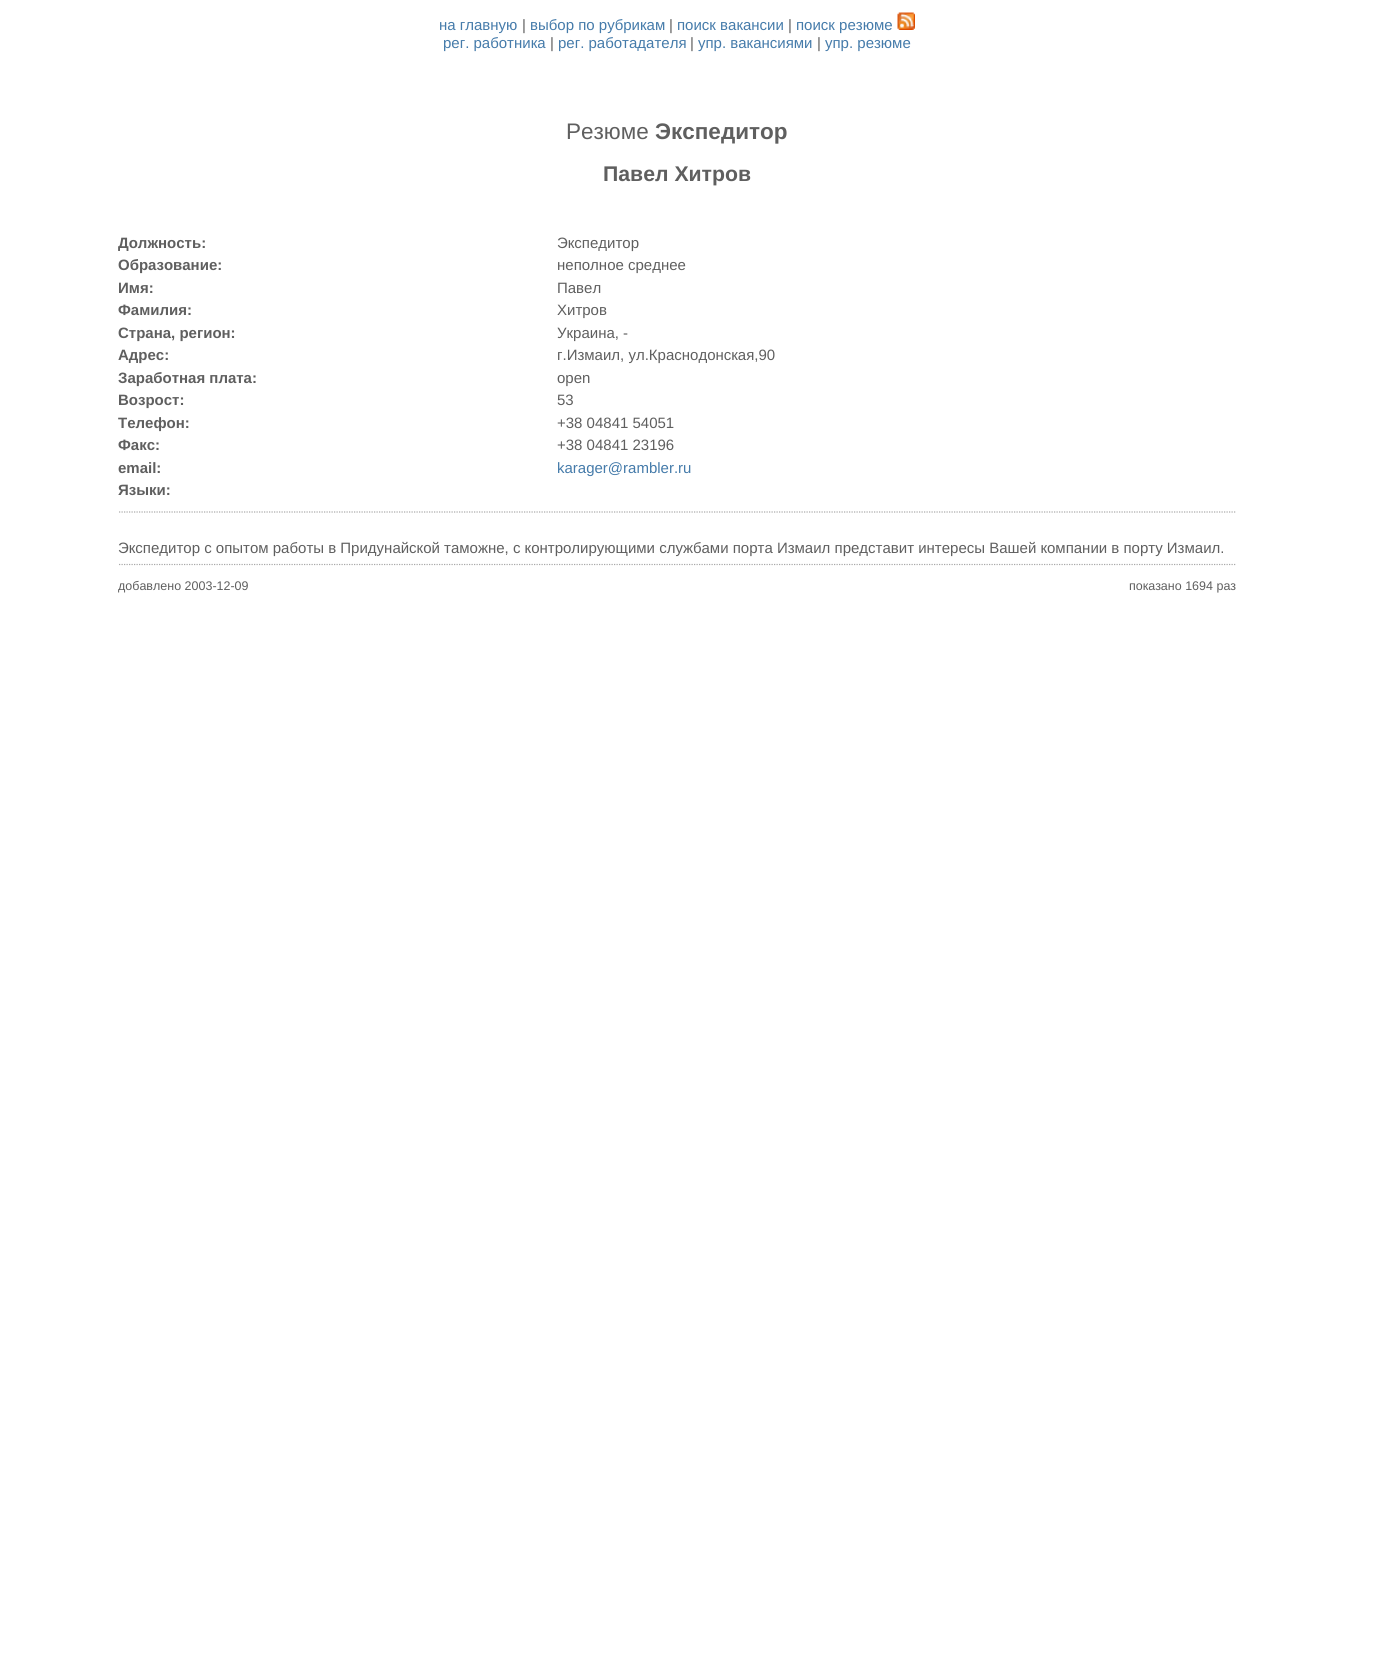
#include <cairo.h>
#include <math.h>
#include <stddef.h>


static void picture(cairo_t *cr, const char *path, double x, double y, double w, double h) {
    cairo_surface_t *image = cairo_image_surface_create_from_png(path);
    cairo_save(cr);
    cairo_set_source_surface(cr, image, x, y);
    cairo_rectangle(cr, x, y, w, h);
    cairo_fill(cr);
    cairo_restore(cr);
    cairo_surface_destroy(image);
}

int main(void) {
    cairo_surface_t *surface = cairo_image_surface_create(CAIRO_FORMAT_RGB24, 1383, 1655);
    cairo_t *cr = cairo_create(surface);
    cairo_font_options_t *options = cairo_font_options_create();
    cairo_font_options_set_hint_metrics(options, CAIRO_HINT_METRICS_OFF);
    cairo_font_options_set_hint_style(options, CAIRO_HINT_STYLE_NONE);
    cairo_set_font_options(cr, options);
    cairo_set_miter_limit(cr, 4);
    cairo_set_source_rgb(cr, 1, 1, 1);
    cairo_paint(cr);
    cairo_select_font_face(cr, "Liberation Sans", CAIRO_FONT_SLANT_NORMAL, CAIRO_FONT_WEIGHT_NORMAL);
    cairo_set_font_size(cr, 15);
    cairo_set_source_rgb(cr, 0.271, 0.482, 0.667);
    cairo_move_to(cr, 439, 30);
    cairo_show_text(cr, "на главную");
    cairo_set_source_rgb(cr, 0.373, 0.373, 0.373);
    cairo_move_to(cr, 522, 30);
    cairo_show_text(cr, "|");
    cairo_set_source_rgb(cr, 0.271, 0.482, 0.667);
    cairo_move_to(cr, 530, 30);
    cairo_show_text(cr, "выбор по рубрикам");
    cairo_set_source_rgb(cr, 0.373, 0.373, 0.373);
    cairo_move_to(cr, 669, 30);
    cairo_show_text(cr, "|");
    cairo_set_source_rgb(cr, 0.271, 0.482, 0.667);
    cairo_move_to(cr, 677, 30);
    cairo_show_text(cr, "поиск вакансии");
    cairo_set_source_rgb(cr, 0.373, 0.373, 0.373);
    cairo_move_to(cr, 788, 30);
    cairo_show_text(cr, "|");
    cairo_set_source_rgb(cr, 0.271, 0.482, 0.667);
    cairo_move_to(cr, 796, 30);
    cairo_show_text(cr, "поиск резюме");
    picture(cr, "img1.png", 897, 12, 18, 18);
    cairo_move_to(cr, 443, 48);
    cairo_show_text(cr, "рег. работника");
    cairo_set_source_rgb(cr, 0.373, 0.373, 0.373);
    cairo_move_to(cr, 550, 48);
    cairo_show_text(cr, "|");
    cairo_set_source_rgb(cr, 0.271, 0.482, 0.667);
    cairo_move_to(cr, 558, 48);
    cairo_show_text(cr, "рег. работадателя");
    cairo_set_source_rgb(cr, 0.373, 0.373, 0.373);
    cairo_move_to(cr, 690, 48);
    cairo_show_text(cr, "|");
    cairo_set_source_rgb(cr, 0.271, 0.482, 0.667);
    cairo_move_to(cr, 698, 48);
    cairo_show_text(cr, "упр. вакансиями");
    cairo_set_source_rgb(cr, 0.373, 0.373, 0.373);
    cairo_move_to(cr, 817, 48);
    cairo_show_text(cr, "|");
    cairo_set_source_rgb(cr, 0.271, 0.482, 0.667);
    cairo_move_to(cr, 825, 48);
    cairo_show_text(cr, "упр. резюме");
    cairo_set_font_size(cr, 22.5);
    cairo_set_source_rgb(cr, 0.373, 0.373, 0.373);
    cairo_move_to(cr, 566, 139);
    cairo_show_text(cr, "Резюме");
    cairo_select_font_face(cr, "Liberation Sans", CAIRO_FONT_SLANT_NORMAL, CAIRO_FONT_WEIGHT_BOLD);
    cairo_move_to(cr, 655, 139);
    cairo_show_text(cr, "Экспедитор");
    cairo_set_font_size(cr, 21.25);
    cairo_move_to(cr, 603, 181);
    cairo_show_text(cr, "Павел Хитров");
    cairo_set_font_size(cr, 15);
    cairo_move_to(cr, 118, 248);
    cairo_show_text(cr, "Должность:");
    cairo_select_font_face(cr, "Liberation Sans", CAIRO_FONT_SLANT_NORMAL, CAIRO_FONT_WEIGHT_NORMAL);
    cairo_move_to(cr, 557, 248);
    cairo_show_text(cr, "Экспедитор");
    cairo_select_font_face(cr, "Liberation Sans", CAIRO_FONT_SLANT_NORMAL, CAIRO_FONT_WEIGHT_BOLD);
    cairo_move_to(cr, 118, 270);
    cairo_show_text(cr, "Образование:");
    cairo_select_font_face(cr, "Liberation Sans", CAIRO_FONT_SLANT_NORMAL, CAIRO_FONT_WEIGHT_NORMAL);
    cairo_move_to(cr, 557, 270);
    cairo_show_text(cr, "неполное среднее");
    cairo_select_font_face(cr, "Liberation Sans", CAIRO_FONT_SLANT_NORMAL, CAIRO_FONT_WEIGHT_BOLD);
    cairo_move_to(cr, 118, 293);
    cairo_show_text(cr, "Имя:");
    cairo_select_font_face(cr, "Liberation Sans", CAIRO_FONT_SLANT_NORMAL, CAIRO_FONT_WEIGHT_NORMAL);
    cairo_move_to(cr, 557, 293);
    cairo_show_text(cr, "Павел");
    cairo_select_font_face(cr, "Liberation Sans", CAIRO_FONT_SLANT_NORMAL, CAIRO_FONT_WEIGHT_BOLD);
    cairo_move_to(cr, 118, 315);
    cairo_show_text(cr, "Фамилия:");
    cairo_select_font_face(cr, "Liberation Sans", CAIRO_FONT_SLANT_NORMAL, CAIRO_FONT_WEIGHT_NORMAL);
    cairo_move_to(cr, 557, 315);
    cairo_show_text(cr, "Хитров");
    cairo_select_font_face(cr, "Liberation Sans", CAIRO_FONT_SLANT_NORMAL, CAIRO_FONT_WEIGHT_BOLD);
    cairo_move_to(cr, 118, 338);
    cairo_show_text(cr, "Страна, регион:");
    cairo_select_font_face(cr, "Liberation Sans", CAIRO_FONT_SLANT_NORMAL, CAIRO_FONT_WEIGHT_NORMAL);
    cairo_move_to(cr, 557, 338);
    cairo_show_text(cr, "Украина, -");
    cairo_select_font_face(cr, "Liberation Sans", CAIRO_FONT_SLANT_NORMAL, CAIRO_FONT_WEIGHT_BOLD);
    cairo_move_to(cr, 118, 360);
    cairo_show_text(cr, "Адрес:");
    cairo_select_font_face(cr, "Liberation Sans", CAIRO_FONT_SLANT_NORMAL, CAIRO_FONT_WEIGHT_NORMAL);
    cairo_move_to(cr, 557, 360);
    cairo_show_text(cr, "г.Измаил, ул.Краснодонская,90");
    cairo_select_font_face(cr, "Liberation Sans", CAIRO_FONT_SLANT_NORMAL, CAIRO_FONT_WEIGHT_BOLD);
    cairo_move_to(cr, 118, 383);
    cairo_show_text(cr, "Заработная плата:");
    cairo_select_font_face(cr, "Liberation Sans", CAIRO_FONT_SLANT_NORMAL, CAIRO_FONT_WEIGHT_NORMAL);
    cairo_move_to(cr, 557, 383);
    cairo_show_text(cr, "open");
    cairo_select_font_face(cr, "Liberation Sans", CAIRO_FONT_SLANT_NORMAL, CAIRO_FONT_WEIGHT_BOLD);
    cairo_move_to(cr, 118, 405);
    cairo_show_text(cr, "Возрост:");
    cairo_select_font_face(cr, "Liberation Sans", CAIRO_FONT_SLANT_NORMAL, CAIRO_FONT_WEIGHT_NORMAL);
    cairo_move_to(cr, 557, 405);
    cairo_show_text(cr, "53");
    cairo_select_font_face(cr, "Liberation Sans", CAIRO_FONT_SLANT_NORMAL, CAIRO_FONT_WEIGHT_BOLD);
    cairo_move_to(cr, 118, 428);
    cairo_show_text(cr, "Телефон:");
    cairo_select_font_face(cr, "Liberation Sans", CAIRO_FONT_SLANT_NORMAL, CAIRO_FONT_WEIGHT_NORMAL);
    cairo_move_to(cr, 557, 428);
    cairo_show_text(cr, "+38 04841 54051");
    cairo_select_font_face(cr, "Liberation Sans", CAIRO_FONT_SLANT_NORMAL, CAIRO_FONT_WEIGHT_BOLD);
    cairo_move_to(cr, 118, 450);
    cairo_show_text(cr, "Факс:");
    cairo_select_font_face(cr, "Liberation Sans", CAIRO_FONT_SLANT_NORMAL, CAIRO_FONT_WEIGHT_NORMAL);
    cairo_move_to(cr, 557, 450);
    cairo_show_text(cr, "+38 04841 23196");
    cairo_select_font_face(cr, "Liberation Sans", CAIRO_FONT_SLANT_NORMAL, CAIRO_FONT_WEIGHT_BOLD);
    cairo_move_to(cr, 118, 473);
    cairo_show_text(cr, "email:");
    cairo_select_font_face(cr, "Liberation Sans", CAIRO_FONT_SLANT_NORMAL, CAIRO_FONT_WEIGHT_NORMAL);
    cairo_set_source_rgb(cr, 0.271, 0.482, 0.667);
    cairo_move_to(cr, 557, 473);
    cairo_show_text(cr, "karager@rambler.ru");
    cairo_select_font_face(cr, "Liberation Sans", CAIRO_FONT_SLANT_NORMAL, CAIRO_FONT_WEIGHT_BOLD);
    cairo_set_source_rgb(cr, 0.373, 0.373, 0.373);
    cairo_move_to(cr, 118, 495);
    cairo_show_text(cr, "Языки:");
    cairo_new_path(cr);
    cairo_move_to(cr, 119, 512);
    cairo_line_to(cr, 1236, 512);
    cairo_set_source_rgb(cr, 0.663, 0.663, 0.663);
    cairo_set_line_width(cr, 1.2);
    cairo_set_dash(cr, (double[]){1.25, 1.25}, 2, 0);
    cairo_stroke(cr);
    cairo_select_font_face(cr, "Liberation Sans", CAIRO_FONT_SLANT_NORMAL, CAIRO_FONT_WEIGHT_NORMAL);
    cairo_set_source_rgb(cr, 0.373, 0.373, 0.373);
    cairo_move_to(cr, 118, 553);
    cairo_show_text(cr, "Экспедитор с опытом работы в Придунайской таможне, с контролирующими службами порта Измаил представит интересы Вашей компании в порту Измаил.");
    cairo_new_path(cr);
    cairo_move_to(cr, 119, 564.5);
    cairo_line_to(cr, 1236, 564.5);
    cairo_set_source_rgb(cr, 0.663, 0.663, 0.663);
    cairo_stroke(cr);
    cairo_set_font_size(cr, 12.5);
    cairo_set_source_rgb(cr, 0.373, 0.373, 0.373);
    cairo_move_to(cr, 118, 590);
    cairo_show_text(cr, "добавлено 2003-12-09");
    cairo_move_to(cr, 1129, 590);
    cairo_show_text(cr, "показано 1694 раз");
    cairo_surface_write_to_png(surface, "page.png");
    cairo_font_options_destroy(options);
    cairo_destroy(cr);
    cairo_surface_destroy(surface);
    return 0;
}
